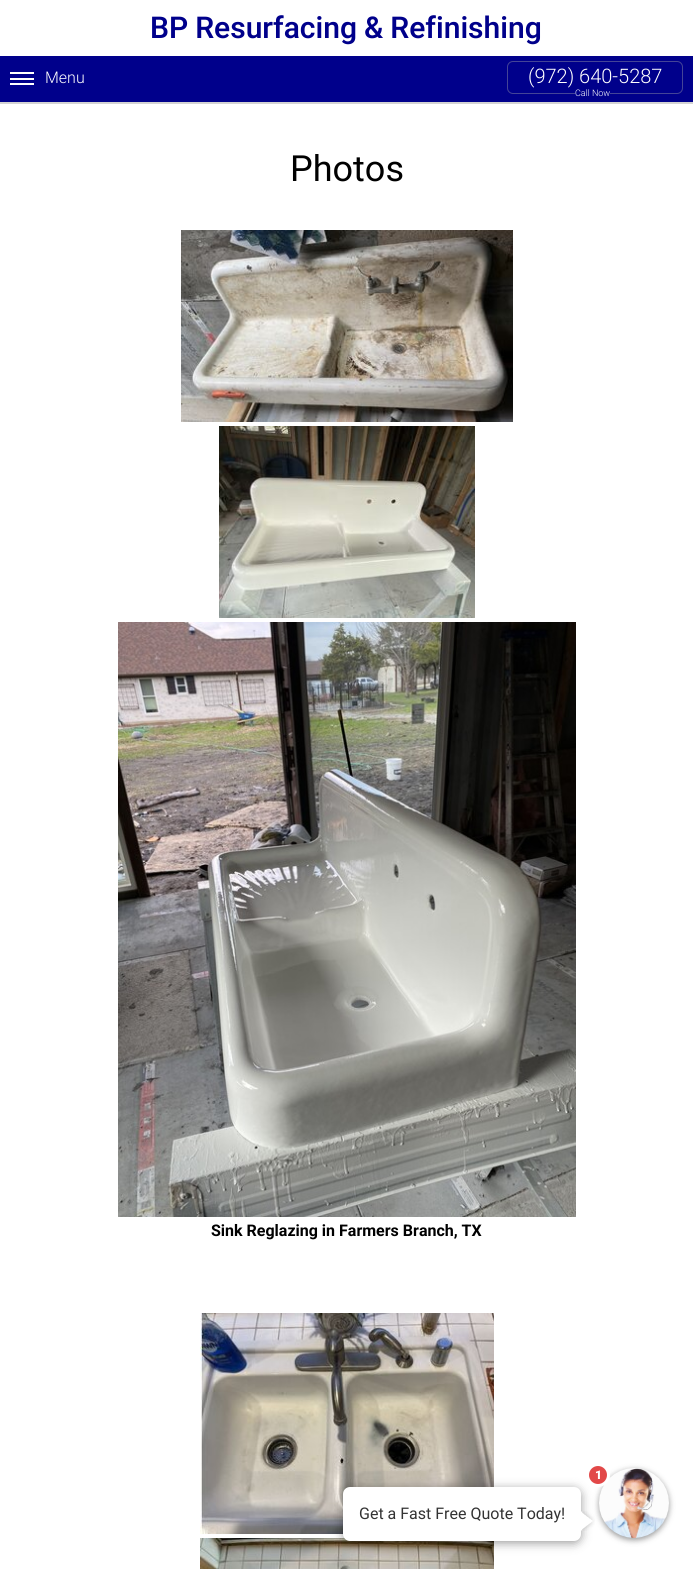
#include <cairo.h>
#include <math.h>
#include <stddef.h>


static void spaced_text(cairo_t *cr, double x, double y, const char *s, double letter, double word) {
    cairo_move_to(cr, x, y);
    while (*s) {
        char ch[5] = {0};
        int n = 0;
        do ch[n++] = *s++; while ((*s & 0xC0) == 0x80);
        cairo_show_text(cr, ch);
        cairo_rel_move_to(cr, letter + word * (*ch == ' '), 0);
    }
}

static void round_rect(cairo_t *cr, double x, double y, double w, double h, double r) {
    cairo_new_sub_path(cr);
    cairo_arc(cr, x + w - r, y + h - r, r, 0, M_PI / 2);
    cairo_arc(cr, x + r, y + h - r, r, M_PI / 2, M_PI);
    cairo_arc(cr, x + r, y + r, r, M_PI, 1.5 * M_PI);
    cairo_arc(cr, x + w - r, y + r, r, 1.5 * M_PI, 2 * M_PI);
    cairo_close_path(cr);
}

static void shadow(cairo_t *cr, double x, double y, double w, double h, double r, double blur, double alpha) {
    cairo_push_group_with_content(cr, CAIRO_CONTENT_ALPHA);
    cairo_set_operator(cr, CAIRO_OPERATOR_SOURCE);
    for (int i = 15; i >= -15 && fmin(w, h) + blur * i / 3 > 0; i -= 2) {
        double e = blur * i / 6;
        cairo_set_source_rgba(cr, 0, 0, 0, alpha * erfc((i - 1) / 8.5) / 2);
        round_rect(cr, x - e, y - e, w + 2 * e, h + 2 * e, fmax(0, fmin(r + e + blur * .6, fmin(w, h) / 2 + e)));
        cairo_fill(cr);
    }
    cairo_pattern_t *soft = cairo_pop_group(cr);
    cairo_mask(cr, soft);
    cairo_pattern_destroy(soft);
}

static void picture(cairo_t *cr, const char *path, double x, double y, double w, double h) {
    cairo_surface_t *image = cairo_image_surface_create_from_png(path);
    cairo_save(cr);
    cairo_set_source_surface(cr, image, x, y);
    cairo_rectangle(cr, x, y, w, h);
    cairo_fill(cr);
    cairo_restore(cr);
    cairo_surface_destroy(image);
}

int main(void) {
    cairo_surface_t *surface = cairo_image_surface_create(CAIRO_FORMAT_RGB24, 693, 1569);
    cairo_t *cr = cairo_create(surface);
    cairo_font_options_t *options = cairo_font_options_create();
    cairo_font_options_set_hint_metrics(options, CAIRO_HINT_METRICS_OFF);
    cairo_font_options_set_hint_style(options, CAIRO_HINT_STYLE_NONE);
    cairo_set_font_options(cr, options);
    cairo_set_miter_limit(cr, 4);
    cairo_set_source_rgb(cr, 1, 1, 1);
    cairo_paint(cr);
    cairo_set_source_rgb(cr, 0.827, 0.827, 0.827);
    cairo_rectangle(cr, 0, 102, 693, 2);
    cairo_fill(cr);
    cairo_select_font_face(cr, "Roboto Medium", CAIRO_FONT_SLANT_NORMAL, CAIRO_FONT_WEIGHT_NORMAL);
    cairo_set_font_size(cr, 30);
    cairo_set_source_rgb(cr, 0, 0, 0.545);
    spaced_text(cr, 150, 38, "BP Resurfacing & Refinishing", 0, -0.5);
    cairo_rectangle(cr, 0, 56, 693, 46);
    cairo_fill(cr);
    cairo_set_source_rgb(cr, 1, 1, 1);
    cairo_rectangle(cr, 10, 83, 24, 2);
    cairo_fill(cr);
    cairo_rectangle(cr, 10, 78, 24, 2);
    cairo_fill(cr);
    cairo_rectangle(cr, 10, 72, 24, 2);
    cairo_fill(cr);
    cairo_select_font_face(cr, "Roboto Light", CAIRO_FONT_SLANT_NORMAL, CAIRO_FONT_WEIGHT_NORMAL);
    cairo_set_font_size(cr, 16);
    cairo_move_to(cr, 45, 83);
    cairo_show_text(cr, "Menu");
    round_rect(cr, 507.5, 61.5, 175, 32, 5.5);
    cairo_set_source_rgb(cr, 0.267, 0.267, 0.592);
    cairo_set_line_width(cr, 1);
    cairo_stroke(cr);
    cairo_set_font_size(cr, 20);
    cairo_set_source_rgb(cr, 1, 1, 1);
    cairo_move_to(cr, 528, 83);
    cairo_show_text(cr, "(972) 640-5287");
    cairo_set_source_rgb(cr, 0, 0, 0.545);
    cairo_rectangle(cr, 575, 93, 35, 1);
    cairo_fill(cr);
    cairo_set_font_size(cr, 9);
    cairo_set_source_rgb(cr, 1, 1, 1);
    cairo_move_to(cr, 575, 96);
    cairo_show_text(cr, "Call Now");
    cairo_select_font_face(cr, "Roboto", CAIRO_FONT_SLANT_NORMAL, CAIRO_FONT_WEIGHT_NORMAL);
    cairo_set_font_size(cr, 36);
    cairo_set_source_rgb(cr, 0, 0, 0);
    cairo_move_to(cr, 290, 181);
    cairo_show_text(cr, "Photos");
    picture(cr, "img1.png", 181, 230, 332, 192);
    picture(cr, "img2.png", 219, 426, 256, 192);
    picture(cr, "img3.png", 118, 622, 458, 595);
    cairo_select_font_face(cr, "Roboto", CAIRO_FONT_SLANT_NORMAL, CAIRO_FONT_WEIGHT_BOLD);
    cairo_set_font_size(cr, 16);
    cairo_move_to(cr, 211, 1236);
    cairo_show_text(cr, "Sink Reglazing in Farmers Branch, TX");
    picture(cr, "img4.png", 200, 1313, 294, 221);
    picture(cr, "img5.png", 200, 1538, 294, 31);
    cairo_set_source_rgb(cr, 0, 0, 0);
    shadow(cr, 599, 1470, 70, 70, 35, 3, 0.4);
    picture(cr, "img6.png", 599, 1468, 70, 70);
    shadow(cr, 343, 1489, 238, 54, 7, 5, 0.4);
    cairo_set_source_rgb(cr, 0.886, 0.282, 0.282);
    cairo_arc(cr, 598, 1475, 10.5, 0, 2 * M_PI);
    cairo_fill_preserve(cr);
    cairo_set_source_rgb(cr, 1, 1, 1);
    cairo_set_line_width(cr, 3);
    cairo_stroke(cr);
    cairo_select_font_face(cr, "Roboto Black", CAIRO_FONT_SLANT_NORMAL, CAIRO_FONT_WEIGHT_NORMAL);
    cairo_set_font_size(cr, 12);
    cairo_move_to(cr, 595, 1479);
    cairo_show_text(cr, "1");
    round_rect(cr, 343, 1487, 238, 54, 7);
    cairo_fill(cr);
    cairo_select_font_face(cr, "Roboto", CAIRO_FONT_SLANT_NORMAL, CAIRO_FONT_WEIGHT_NORMAL);
    cairo_set_font_size(cr, 16);
    cairo_set_source_rgb(cr, 0.2, 0.2, 0.2);
    cairo_move_to(cr, 359, 1519);
    cairo_show_text(cr, "Get a Fast Free Quote Today!");
    picture(cr, "img7.png", 581, 1511, 14, 20);
    cairo_surface_write_to_png(surface, "page.png");
    cairo_font_options_destroy(options);
    cairo_destroy(cr);
    cairo_surface_destroy(surface);
    return 0;
}
